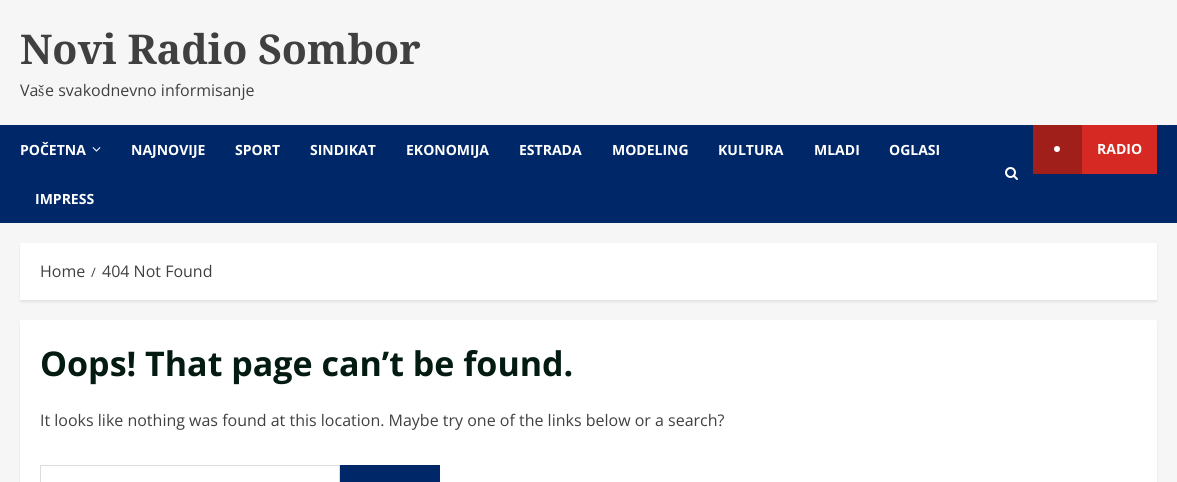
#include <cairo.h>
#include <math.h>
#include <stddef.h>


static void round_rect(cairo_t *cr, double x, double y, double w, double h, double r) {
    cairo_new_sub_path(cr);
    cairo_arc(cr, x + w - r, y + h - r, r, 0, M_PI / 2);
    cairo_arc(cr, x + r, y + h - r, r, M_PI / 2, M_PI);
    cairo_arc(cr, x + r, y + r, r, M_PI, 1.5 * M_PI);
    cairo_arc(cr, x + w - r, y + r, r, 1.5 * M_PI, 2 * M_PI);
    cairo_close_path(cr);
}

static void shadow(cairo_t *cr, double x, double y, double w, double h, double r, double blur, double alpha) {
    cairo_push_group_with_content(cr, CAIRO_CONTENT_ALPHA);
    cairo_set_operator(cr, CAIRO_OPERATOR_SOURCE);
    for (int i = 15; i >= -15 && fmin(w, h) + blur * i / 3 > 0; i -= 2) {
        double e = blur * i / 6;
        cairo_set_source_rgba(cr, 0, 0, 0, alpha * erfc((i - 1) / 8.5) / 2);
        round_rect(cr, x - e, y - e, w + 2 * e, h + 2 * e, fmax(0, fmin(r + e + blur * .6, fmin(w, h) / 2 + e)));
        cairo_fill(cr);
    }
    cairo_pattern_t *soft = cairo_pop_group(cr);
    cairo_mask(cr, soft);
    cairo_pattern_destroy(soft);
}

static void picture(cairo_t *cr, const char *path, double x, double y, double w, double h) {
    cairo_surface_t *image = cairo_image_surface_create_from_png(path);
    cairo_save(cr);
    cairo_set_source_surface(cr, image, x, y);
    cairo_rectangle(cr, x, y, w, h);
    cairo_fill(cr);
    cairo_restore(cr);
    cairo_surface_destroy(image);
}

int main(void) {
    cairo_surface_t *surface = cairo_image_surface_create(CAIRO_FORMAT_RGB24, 1177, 482);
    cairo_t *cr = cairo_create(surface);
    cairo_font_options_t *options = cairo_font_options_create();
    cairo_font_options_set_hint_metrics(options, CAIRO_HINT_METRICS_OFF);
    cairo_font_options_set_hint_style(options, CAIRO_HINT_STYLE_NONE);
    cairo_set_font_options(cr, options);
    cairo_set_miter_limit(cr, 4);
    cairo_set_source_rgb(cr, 0.961, 0.961, 0.961);
    cairo_paint(cr);
    cairo_select_font_face(cr, "Noto Serif", CAIRO_FONT_SLANT_NORMAL, CAIRO_FONT_WEIGHT_BOLD);
    cairo_set_font_size(cr, 41);
    cairo_set_source_rgb(cr, 0.251, 0.251, 0.251);
    cairo_move_to(cr, 20, 64);
    cairo_show_text(cr, "Novi Radio Sombor");
    cairo_select_font_face(cr, "Open Sans", CAIRO_FONT_SLANT_NORMAL, CAIRO_FONT_WEIGHT_NORMAL);
    cairo_set_font_size(cr, 16);
    cairo_move_to(cr, 20, 96);
    cairo_show_text(cr, "Va");
    cairo_select_font_face(cr, "Liberation Serif", CAIRO_FONT_SLANT_NORMAL, CAIRO_FONT_WEIGHT_NORMAL);
    cairo_move_to(cr, 38, 96);
    cairo_show_text(cr, "š");
    cairo_select_font_face(cr, "Open Sans", CAIRO_FONT_SLANT_NORMAL, CAIRO_FONT_WEIGHT_NORMAL);
    cairo_move_to(cr, 45, 96);
    cairo_show_text(cr, "e svakodnevno informisanje");
    cairo_set_source_rgb(cr, 0, 0.157, 0.408);
    cairo_rectangle(cr, 0, 125, 1177, 98);
    cairo_fill(cr);
    cairo_select_font_face(cr, "Open Sans", CAIRO_FONT_SLANT_NORMAL, CAIRO_FONT_WEIGHT_BOLD);
    cairo_set_font_size(cr, 14);
    cairo_set_source_rgb(cr, 1, 1, 1);
    cairo_move_to(cr, 20, 155);
    cairo_show_text(cr, "POČETNA");
    picture(cr, "img1.png", 92, 147, 9, 5);
    cairo_move_to(cr, 131, 155);
    cairo_show_text(cr, "NAJNOVIJE");
    cairo_move_to(cr, 235, 155);
    cairo_show_text(cr, "SPORT");
    cairo_move_to(cr, 310, 155);
    cairo_show_text(cr, "SINDIKAT");
    cairo_move_to(cr, 406, 155);
    cairo_show_text(cr, "EKONOMIJA");
    cairo_move_to(cr, 519, 155);
    cairo_show_text(cr, "ESTRADA");
    cairo_move_to(cr, 612, 155);
    cairo_show_text(cr, "MODELING");
    cairo_move_to(cr, 718, 155);
    cairo_show_text(cr, "KULTURA");
    cairo_move_to(cr, 814, 155);
    cairo_show_text(cr, "MLADI");
    cairo_move_to(cr, 889, 155);
    cairo_show_text(cr, "OGLASI");
    cairo_move_to(cr, 35, 204);
    cairo_show_text(cr, "IMPRESS");
    cairo_set_source_rgb(cr, 0.843, 0.161, 0.141);
    cairo_rectangle(cr, 1082, 125, 75, 49);
    cairo_fill(cr);
    cairo_set_source_rgb(cr, 0.631, 0.122, 0.106);
    cairo_rectangle(cr, 1033, 125, 49, 49);
    cairo_fill(cr);
    cairo_set_source_rgb(cr, 1, 1, 1);
    cairo_arc(cr, 1057, 149, 3, 0, 2 * M_PI);
    cairo_fill(cr);
    cairo_move_to(cr, 1097, 154);
    cairo_show_text(cr, "RADIO");
    picture(cr, "img2.png", 1005, 167, 13, 13);
    cairo_set_source_rgb(cr, 0, 0, 0);
    shadow(cr, 20, 245, 1137, 57, 0, 1, 0.08);
    cairo_set_source_rgb(cr, 1, 1, 1);
    cairo_rectangle(cr, 20, 243, 1137, 57);
    cairo_fill(cr);
    cairo_select_font_face(cr, "Open Sans", CAIRO_FONT_SLANT_NORMAL, CAIRO_FONT_WEIGHT_NORMAL);
    cairo_set_font_size(cr, 16);
    cairo_set_source_rgb(cr, 0.251, 0.251, 0.251);
    cairo_move_to(cr, 40, 277);
    cairo_show_text(cr, "Home");
    cairo_set_font_size(cr, 13);
    cairo_move_to(cr, 91, 277);
    cairo_show_text(cr, "/");
    cairo_set_font_size(cr, 16);
    cairo_move_to(cr, 102, 277);
    cairo_show_text(cr, "404 Not Found");
    cairo_set_source_rgb(cr, 0, 0, 0);
    shadow(cr, 20, 322, 1137, 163, 0, 1, 0.08);
    cairo_set_source_rgb(cr, 1, 1, 1);
    cairo_rectangle(cr, 20, 320, 1137, 162);
    cairo_fill(cr);
    cairo_select_font_face(cr, "Open Sans", CAIRO_FONT_SLANT_NORMAL, CAIRO_FONT_WEIGHT_BOLD);
    cairo_set_font_size(cr, 34);
    cairo_set_source_rgb(cr, 0.012, 0.106, 0.067);
    cairo_move_to(cr, 40, 376);
    cairo_show_text(cr, "Oops! That page can’t be found.");
    cairo_select_font_face(cr, "Open Sans", CAIRO_FONT_SLANT_NORMAL, CAIRO_FONT_WEIGHT_NORMAL);
    cairo_set_font_size(cr, 16);
    cairo_set_source_rgb(cr, 0.251, 0.251, 0.251);
    cairo_move_to(cr, 40, 426);
    cairo_show_text(cr, "It looks like nothing was found at this location. Maybe try one of the links below or a search?");
    cairo_rectangle(cr, 40.5, 465.5, 299, 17);
    cairo_set_source_rgb(cr, 0.863, 0.863, 0.863);
    cairo_set_line_width(cr, 1);
    cairo_stroke(cr);
    cairo_set_source_rgb(cr, 0, 0.157, 0.408);
    cairo_rectangle(cr, 340, 465, 100, 17);
    cairo_fill(cr);
    cairo_surface_write_to_png(surface, "page.png");
    cairo_font_options_destroy(options);
    cairo_destroy(cr);
    cairo_surface_destroy(surface);
    return 0;
}
